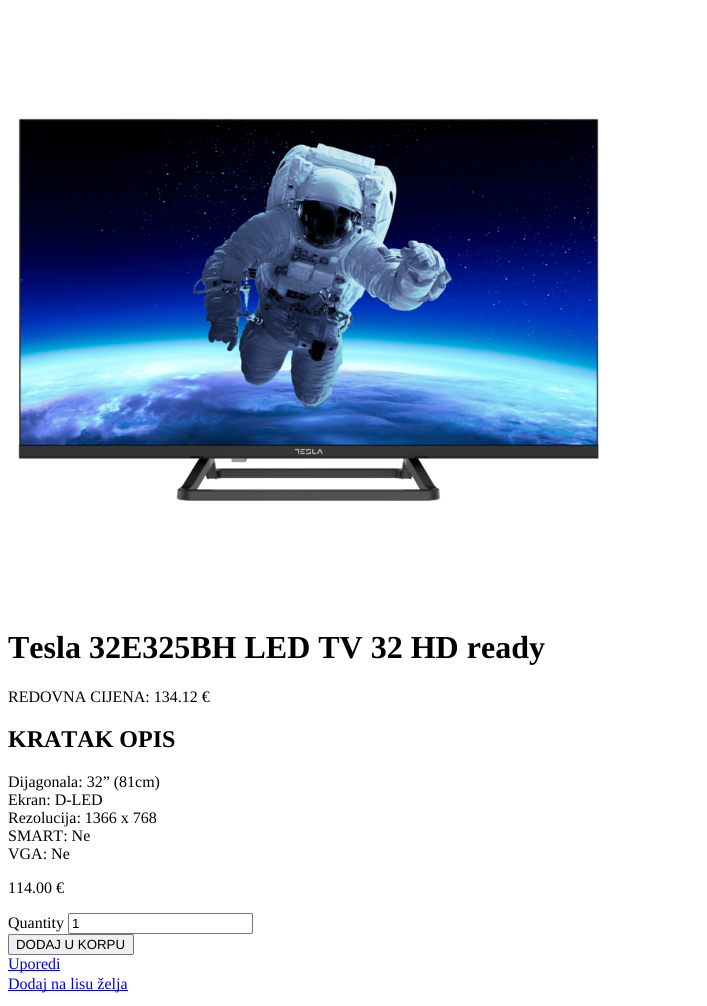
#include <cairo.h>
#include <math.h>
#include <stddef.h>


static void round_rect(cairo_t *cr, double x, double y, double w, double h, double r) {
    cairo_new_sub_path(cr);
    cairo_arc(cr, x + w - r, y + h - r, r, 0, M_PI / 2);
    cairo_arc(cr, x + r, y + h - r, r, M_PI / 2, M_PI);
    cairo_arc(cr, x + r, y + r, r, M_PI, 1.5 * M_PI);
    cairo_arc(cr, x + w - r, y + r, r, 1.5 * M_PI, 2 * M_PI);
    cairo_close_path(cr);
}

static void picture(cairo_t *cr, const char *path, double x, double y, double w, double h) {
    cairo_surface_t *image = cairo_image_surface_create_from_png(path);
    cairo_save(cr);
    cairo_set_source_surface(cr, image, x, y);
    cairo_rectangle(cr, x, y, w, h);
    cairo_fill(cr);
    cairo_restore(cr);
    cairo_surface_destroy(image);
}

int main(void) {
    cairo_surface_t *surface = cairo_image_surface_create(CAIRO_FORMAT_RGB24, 707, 1006);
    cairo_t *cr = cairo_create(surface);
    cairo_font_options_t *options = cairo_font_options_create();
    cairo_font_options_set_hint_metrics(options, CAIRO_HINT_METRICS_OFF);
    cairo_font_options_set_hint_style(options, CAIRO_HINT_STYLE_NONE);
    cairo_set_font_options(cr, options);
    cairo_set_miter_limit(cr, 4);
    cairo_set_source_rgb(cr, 1, 1, 1);
    cairo_paint(cr);
    picture(cr, "img1.png", 18, 118, 581, 383);
    cairo_select_font_face(cr, "Liberation Serif", CAIRO_FONT_SLANT_NORMAL, CAIRO_FONT_WEIGHT_BOLD);
    cairo_set_font_size(cr, 32);
    cairo_set_source_rgb(cr, 0, 0, 0);
    cairo_move_to(cr, 8, 658);
    cairo_show_text(cr, "Tesla 32E325BH LED TV 32 HD ready");
    cairo_select_font_face(cr, "Liberation Serif", CAIRO_FONT_SLANT_NORMAL, CAIRO_FONT_WEIGHT_NORMAL);
    cairo_set_font_size(cr, 16);
    cairo_move_to(cr, 8, 702);
    cairo_show_text(cr, "REDOVNA CIJENA: 134.12 €");
    cairo_select_font_face(cr, "Liberation Serif", CAIRO_FONT_SLANT_NORMAL, CAIRO_FONT_WEIGHT_BOLD);
    cairo_set_font_size(cr, 24);
    cairo_move_to(cr, 8, 747);
    cairo_show_text(cr, "KRATAK OPIS");
    cairo_select_font_face(cr, "Liberation Serif", CAIRO_FONT_SLANT_NORMAL, CAIRO_FONT_WEIGHT_NORMAL);
    cairo_set_font_size(cr, 16);
    cairo_move_to(cr, 8, 787);
    cairo_show_text(cr, "Dijagonala: 32” (81cm)");
    cairo_move_to(cr, 8, 805);
    cairo_show_text(cr, "Ekran: D-LED");
    cairo_move_to(cr, 8, 823);
    cairo_show_text(cr, "Rezolucija: 1366 x 768");
    cairo_move_to(cr, 8, 841);
    cairo_show_text(cr, "SMART: Ne");
    cairo_move_to(cr, 8, 859);
    cairo_show_text(cr, "VGA: Ne");
    cairo_move_to(cr, 8, 893);
    cairo_show_text(cr, "114.00 €");
    cairo_move_to(cr, 8, 928);
    cairo_show_text(cr, "Quantity");
    round_rect(cr, 68.5, 913.5, 184, 20, 1.5);
    cairo_set_source_rgb(cr, 0.463, 0.463, 0.463);
    cairo_set_line_width(cr, 1);
    cairo_stroke(cr);
    cairo_select_font_face(cr, "Liberation Sans", CAIRO_FONT_SLANT_NORMAL, CAIRO_FONT_WEIGHT_NORMAL);
    cairo_set_font_size(cr, 13.25);
    cairo_set_source_rgb(cr, 0, 0, 0);
    cairo_move_to(cr, 72, 928);
    cairo_show_text(cr, "1");
    cairo_set_source_rgb(cr, 0.937, 0.937, 0.937);
    round_rect(cr, 8.5, 934.5, 125, 20, 1.5);
    cairo_fill_preserve(cr);
    cairo_set_source_rgb(cr, 0.463, 0.463, 0.463);
    cairo_stroke(cr);
    cairo_set_source_rgb(cr, 0, 0, 0);
    cairo_move_to(cr, 16, 949);
    cairo_show_text(cr, "DODAJ U KORPU");
    cairo_set_source_rgb(cr, 0, 0, 0.933);
    cairo_rectangle(cr, 8, 970, 52, 1);
    cairo_fill(cr);
    cairo_select_font_face(cr, "Liberation Serif", CAIRO_FONT_SLANT_NORMAL, CAIRO_FONT_WEIGHT_NORMAL);
    cairo_set_font_size(cr, 16);
    cairo_move_to(cr, 8, 969);
    cairo_show_text(cr, "Uporedi");
    cairo_rectangle(cr, 8, 990, 120, 1);
    cairo_fill(cr);
    cairo_move_to(cr, 8, 989);
    cairo_show_text(cr, "Dodaj na lisu želja");
    cairo_surface_write_to_png(surface, "page.png");
    cairo_font_options_destroy(options);
    cairo_destroy(cr);
    cairo_surface_destroy(surface);
    return 0;
}
